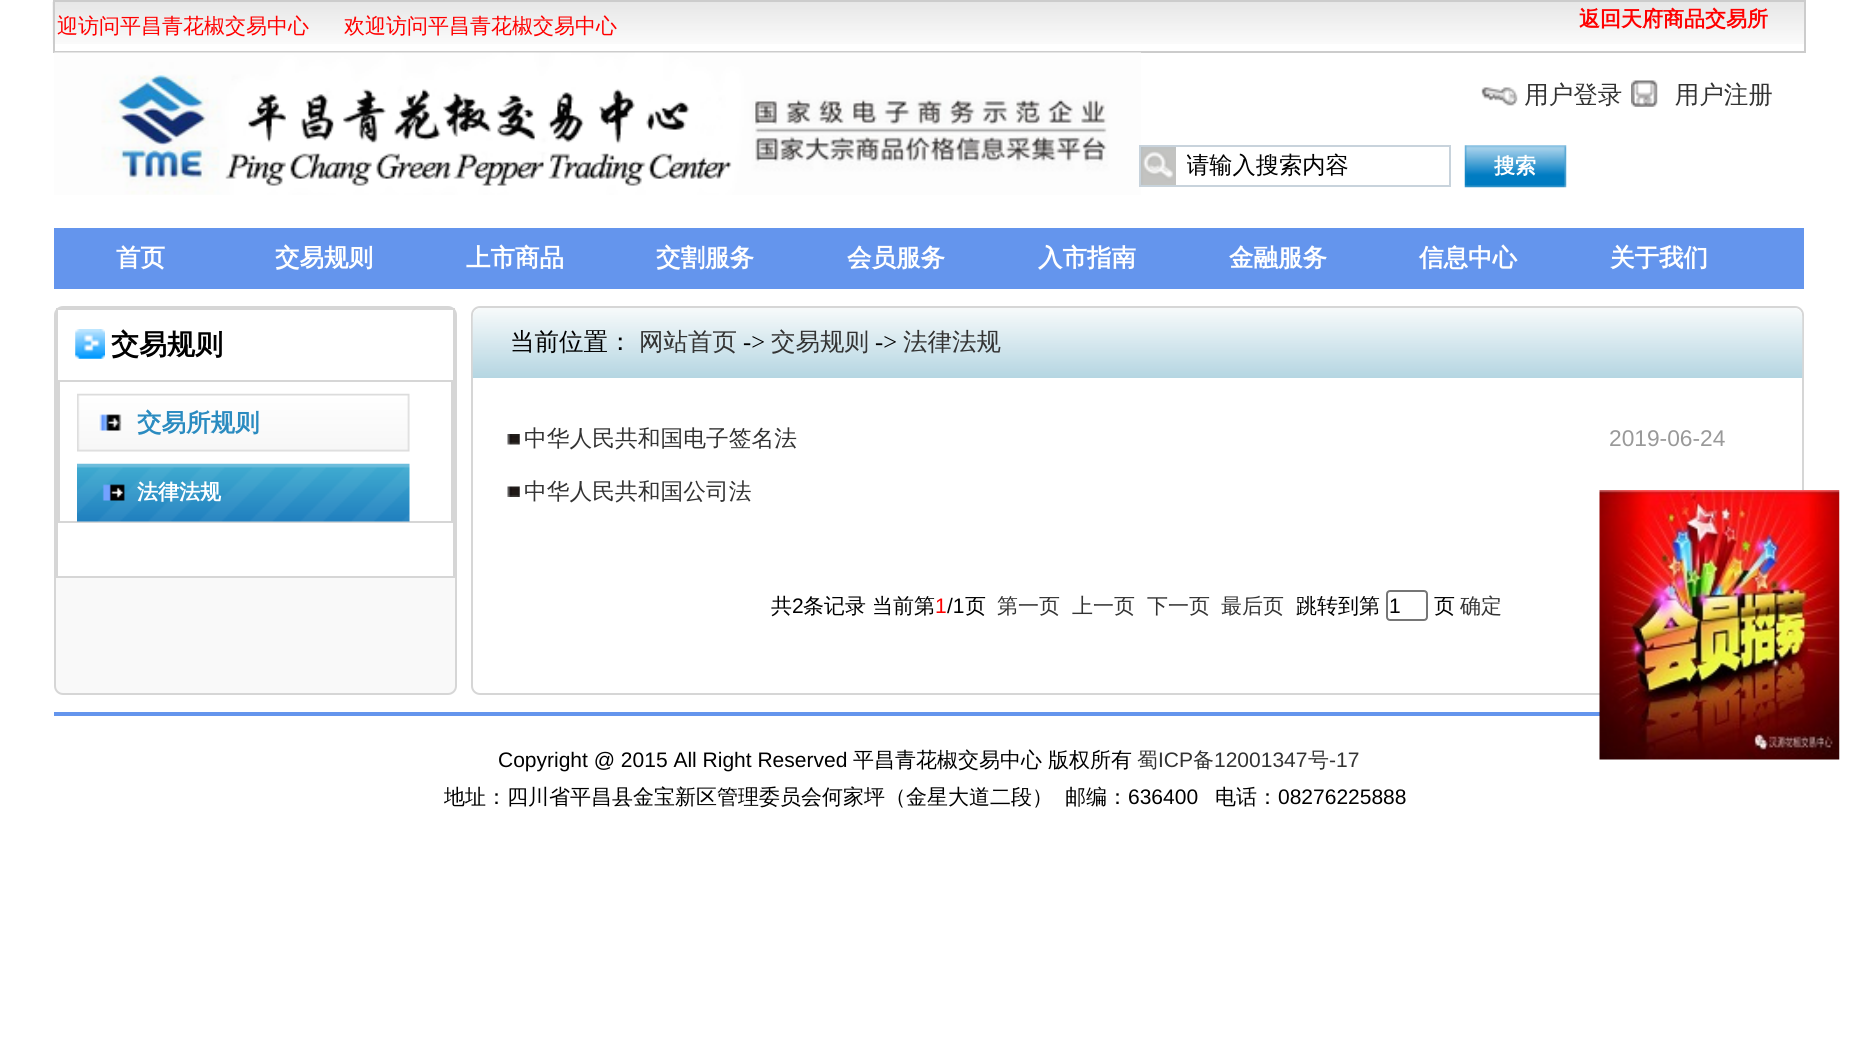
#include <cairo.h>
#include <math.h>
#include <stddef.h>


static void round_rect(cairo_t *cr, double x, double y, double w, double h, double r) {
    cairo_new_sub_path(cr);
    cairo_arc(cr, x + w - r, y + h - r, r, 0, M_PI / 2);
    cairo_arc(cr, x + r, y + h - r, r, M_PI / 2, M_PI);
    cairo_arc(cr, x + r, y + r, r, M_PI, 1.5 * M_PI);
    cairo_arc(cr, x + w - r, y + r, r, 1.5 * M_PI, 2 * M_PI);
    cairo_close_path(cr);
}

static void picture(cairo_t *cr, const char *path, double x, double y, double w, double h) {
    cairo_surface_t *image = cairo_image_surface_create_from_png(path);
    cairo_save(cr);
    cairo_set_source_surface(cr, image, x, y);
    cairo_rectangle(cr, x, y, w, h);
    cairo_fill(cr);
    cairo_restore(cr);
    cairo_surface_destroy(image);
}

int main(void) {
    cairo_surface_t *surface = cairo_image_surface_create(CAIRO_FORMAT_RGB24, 1856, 1063);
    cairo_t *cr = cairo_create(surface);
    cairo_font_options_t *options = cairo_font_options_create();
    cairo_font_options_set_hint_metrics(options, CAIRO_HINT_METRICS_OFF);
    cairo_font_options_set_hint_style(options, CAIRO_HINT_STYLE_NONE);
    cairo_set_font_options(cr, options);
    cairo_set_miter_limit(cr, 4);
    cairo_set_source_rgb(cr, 1, 1, 1);
    cairo_paint(cr);
    picture(cr, "img1.png", 52, 1, 1752, 43);
    cairo_rectangle(cr, 54, 1, 1751, 51);
    cairo_set_source_rgb(cr, 0.8, 0.8, 0.8);
    cairo_stroke(cr);
    cairo_select_font_face(cr, "WenQuanYi Zen Hei Medium", CAIRO_FONT_SLANT_NORMAL, CAIRO_FONT_WEIGHT_NORMAL);
    cairo_set_font_size(cr, 21);
    cairo_set_source_rgb(cr, 1, 0, 0);
    cairo_move_to(cr, 57, 33);
    cairo_show_text(cr, "迎访问平昌青花椒交易中心");
    cairo_move_to(cr, 344, 33);
    cairo_show_text(cr, "欢迎访问平昌青花椒交易中心");
    cairo_select_font_face(cr, "WenQuanYi Zen Hei", CAIRO_FONT_SLANT_NORMAL, CAIRO_FONT_WEIGHT_BOLD);
    cairo_move_to(cr, 1579, 26);
    cairo_show_text(cr, "返回天府商品交易所");
    picture(cr, "img2.png", 54, 52, 1087, 143);
    picture(cr, "img3.png", 1481, 80, 291, 27);
    picture(cr, "img4.png", 1141, 147, 35, 38);
    cairo_rectangle(cr, 1140, 146, 310, 40);
    cairo_set_source_rgb(cr, 0.784, 0.827, 0.863);
    cairo_stroke(cr);
    cairo_save(cr);
    cairo_rectangle(cr, 1187, 147, 262, 39);
    cairo_clip(cr);
    cairo_select_font_face(cr, "WenQuanYi Zen Hei Medium", CAIRO_FONT_SLANT_NORMAL, CAIRO_FONT_WEIGHT_NORMAL);
    cairo_set_font_size(cr, 23.25);
    cairo_set_source_rgb(cr, 0, 0, 0);
    cairo_move_to(cr, 1186, 173);
    cairo_show_text(cr, "请输入搜索内容");
    cairo_restore(cr);
    picture(cr, "img5.png", 1464, 145, 103, 43);
    cairo_set_source_rgb(cr, 1, 1, 1);
    cairo_move_to(cr, 1494, 173);
    cairo_show_text(cr, "搜索");
    cairo_set_source_rgb(cr, 0.392, 0.584, 0.929);
    cairo_rectangle(cr, 54, 228, 1750, 61);
    cairo_fill(cr);
    cairo_set_font_size(cr, 24.5);
    cairo_set_source_rgb(cr, 1, 1, 1);
    cairo_move_to(cr, 116, 266);
    cairo_show_text(cr, "首页");
    cairo_move_to(cr, 275, 266);
    cairo_show_text(cr, "交易规则");
    cairo_move_to(cr, 466, 266);
    cairo_show_text(cr, "上市商品");
    cairo_move_to(cr, 656, 266);
    cairo_show_text(cr, "交割服务");
    cairo_move_to(cr, 847, 266);
    cairo_show_text(cr, "会员服务");
    cairo_move_to(cr, 1038, 266);
    cairo_show_text(cr, "入市指南");
    cairo_move_to(cr, 1229, 266);
    cairo_show_text(cr, "金融服务");
    cairo_move_to(cr, 1419, 266);
    cairo_show_text(cr, "信息中心");
    cairo_move_to(cr, 1610, 266);
    cairo_show_text(cr, "关于我们");
    cairo_set_source_rgb(cr, 0.973, 0.973, 0.973);
    round_rect(cr, 55, 307, 401, 387, 8);
    cairo_fill_preserve(cr);
    cairo_set_source_rgb(cr, 0.839, 0.839, 0.839);
    cairo_stroke(cr);
    cairo_set_source_rgb(cr, 1, 1, 1);
    cairo_rectangle(cr, 57, 309, 397, 268);
    cairo_fill_preserve(cr);
    cairo_set_source_rgb(cr, 0.839, 0.839, 0.839);
    cairo_stroke(cr);
    picture(cr, "img6.png", 75, 329, 30, 30);
    cairo_set_font_size(cr, 28);
    cairo_set_source_rgb(cr, 0, 0, 0);
    cairo_move_to(cr, 111, 354);
    cairo_show_text(cr, "交易规则");
    cairo_rectangle(cr, 59, 381, 393, 141);
    cairo_set_source_rgb(cr, 0.839, 0.839, 0.839);
    cairo_stroke(cr);
    picture(cr, "img7.png", 77, 393, 333, 59);
    cairo_set_font_size(cr, 24.5);
    cairo_set_source_rgb(cr, 0.165, 0.545, 0.753);
    cairo_move_to(cr, 137, 431);
    cairo_show_text(cr, "交易所规则");
    picture(cr, "img8.png", 77, 463, 333, 59);
    cairo_set_font_size(cr, 21);
    cairo_set_source_rgb(cr, 1, 1, 1);
    cairo_move_to(cr, 137, 499);
    cairo_show_text(cr, "法律法规");
    round_rect(cr, 472, 307, 1331, 387, 8);
    cairo_set_source_rgb(cr, 0.839, 0.839, 0.839);
    cairo_stroke(cr);
    picture(cr, "img9.png", 472, 308, 1331, 70);
    cairo_select_font_face(cr, "WenQuanYi Zen Hei Medium", CAIRO_FONT_SLANT_NORMAL, CAIRO_FONT_WEIGHT_NORMAL);
    cairo_set_font_size(cr, 24.5);
    cairo_set_source_rgb(cr, 0, 0, 0);
    cairo_move_to(cr, 510, 350);
    cairo_show_text(cr, "当前位置：");
    cairo_set_source_rgb(cr, 0.2, 0.2, 0.2);
    cairo_move_to(cr, 639, 350);
    cairo_show_text(cr, "网站首页");
    cairo_select_font_face(cr, "Liberation Serif", CAIRO_FONT_SLANT_NORMAL, CAIRO_FONT_WEIGHT_NORMAL);
    cairo_set_source_rgb(cr, 0, 0, 0);
    cairo_move_to(cr, 743, 350);
    cairo_show_text(cr, "->");
    cairo_select_font_face(cr, "WenQuanYi Zen Hei Medium", CAIRO_FONT_SLANT_NORMAL, CAIRO_FONT_WEIGHT_NORMAL);
    cairo_set_source_rgb(cr, 0.2, 0.2, 0.2);
    cairo_move_to(cr, 771, 350);
    cairo_show_text(cr, "交易规则");
    cairo_select_font_face(cr, "Liberation Serif", CAIRO_FONT_SLANT_NORMAL, CAIRO_FONT_WEIGHT_NORMAL);
    cairo_set_source_rgb(cr, 0, 0, 0);
    cairo_move_to(cr, 875, 350);
    cairo_show_text(cr, "->");
    cairo_select_font_face(cr, "WenQuanYi Zen Hei Medium", CAIRO_FONT_SLANT_NORMAL, CAIRO_FONT_WEIGHT_NORMAL);
    cairo_set_source_rgb(cr, 0.2, 0.2, 0.2);
    cairo_move_to(cr, 903, 350);
    cairo_show_text(cr, "法律法规");
    picture(cr, "img10.png", 507, 434, 13, 11);
    cairo_set_font_size(cr, 22.75);
    cairo_move_to(cr, 524, 446);
    cairo_show_text(cr, "中华人民共和国电子签名法");
    cairo_select_font_face(cr, "Liberation Sans", CAIRO_FONT_SLANT_NORMAL, CAIRO_FONT_WEIGHT_NORMAL);
    cairo_set_source_rgb(cr, 0.6, 0.6, 0.6);
    cairo_move_to(cr, 1609, 446);
    cairo_show_text(cr, "2019-06-24");
    picture(cr, "img11.png", 507, 486, 13, 11);
    cairo_select_font_face(cr, "WenQuanYi Zen Hei Medium", CAIRO_FONT_SLANT_NORMAL, CAIRO_FONT_WEIGHT_NORMAL);
    cairo_set_source_rgb(cr, 0.2, 0.2, 0.2);
    cairo_move_to(cr, 524, 499);
    cairo_show_text(cr, "中华人民共和国公司法");
    cairo_set_font_size(cr, 21);
    cairo_set_source_rgb(cr, 0, 0, 0);
    cairo_move_to(cr, 771, 613);
    cairo_show_text(cr, "共");
    cairo_select_font_face(cr, "Liberation Sans", CAIRO_FONT_SLANT_NORMAL, CAIRO_FONT_WEIGHT_NORMAL);
    cairo_move_to(cr, 792, 613);
    cairo_show_text(cr, "2");
    cairo_select_font_face(cr, "WenQuanYi Zen Hei Medium", CAIRO_FONT_SLANT_NORMAL, CAIRO_FONT_WEIGHT_NORMAL);
    cairo_move_to(cr, 803, 613);
    cairo_show_text(cr, "条记录");
    cairo_move_to(cr, 872, 613);
    cairo_show_text(cr, "当前第");
    cairo_select_font_face(cr, "Liberation Sans", CAIRO_FONT_SLANT_NORMAL, CAIRO_FONT_WEIGHT_NORMAL);
    cairo_set_source_rgb(cr, 1, 0, 0);
    cairo_move_to(cr, 935, 613);
    cairo_show_text(cr, "1");
    cairo_set_source_rgb(cr, 0, 0, 0);
    cairo_move_to(cr, 947, 613);
    cairo_show_text(cr, "/1");
    cairo_select_font_face(cr, "WenQuanYi Zen Hei Medium", CAIRO_FONT_SLANT_NORMAL, CAIRO_FONT_WEIGHT_NORMAL);
    cairo_move_to(cr, 965, 613);
    cairo_show_text(cr, "页");
    cairo_set_source_rgb(cr, 0.2, 0.2, 0.2);
    cairo_move_to(cr, 997, 613);
    cairo_show_text(cr, "第一页");
    cairo_move_to(cr, 1072, 613);
    cairo_show_text(cr, "上一页");
    cairo_move_to(cr, 1147, 613);
    cairo_show_text(cr, "下一页");
    cairo_move_to(cr, 1221, 613);
    cairo_show_text(cr, "最后页");
    cairo_set_source_rgb(cr, 0, 0, 0);
    cairo_move_to(cr, 1296, 613);
    cairo_show_text(cr, "跳转到第");
    round_rect(cr, 1387, 591, 40, 29, 3);
    cairo_set_source_rgb(cr, 0.463, 0.463, 0.463);
    cairo_stroke(cr);
    cairo_select_font_face(cr, "Liberation Sans", CAIRO_FONT_SLANT_NORMAL, CAIRO_FONT_WEIGHT_NORMAL);
    cairo_set_source_rgb(cr, 0, 0, 0);
    cairo_move_to(cr, 1389, 613);
    cairo_show_text(cr, "1");
    cairo_select_font_face(cr, "WenQuanYi Zen Hei Medium", CAIRO_FONT_SLANT_NORMAL, CAIRO_FONT_WEIGHT_NORMAL);
    cairo_move_to(cr, 1434, 613);
    cairo_show_text(cr, "页");
    cairo_set_source_rgb(cr, 0.2, 0.2, 0.2);
    cairo_move_to(cr, 1460, 613);
    cairo_show_text(cr, "确定");
    cairo_set_source_rgb(cr, 0.392, 0.584, 0.929);
    cairo_rectangle(cr, 54, 712, 1546, 4);
    cairo_fill(cr);
    picture(cr, "img12.png", 1599, 490, 241, 270);
    cairo_select_font_face(cr, "Liberation Sans", CAIRO_FONT_SLANT_NORMAL, CAIRO_FONT_WEIGHT_NORMAL);
    cairo_set_source_rgb(cr, 0, 0, 0);
    cairo_move_to(cr, 498, 767);
    cairo_show_text(cr, "Copyright @ 2015 All Right Reserved");
    cairo_select_font_face(cr, "WenQuanYi Zen Hei Medium", CAIRO_FONT_SLANT_NORMAL, CAIRO_FONT_WEIGHT_NORMAL);
    cairo_move_to(cr, 853, 767);
    cairo_show_text(cr, "平昌青花椒交易中心");
    cairo_move_to(cr, 1048, 767);
    cairo_show_text(cr, "版权所有");
    cairo_set_source_rgb(cr, 0.2, 0.2, 0.2);
    cairo_move_to(cr, 1137, 767);
    cairo_show_text(cr, "蜀");
    cairo_select_font_face(cr, "Liberation Sans", CAIRO_FONT_SLANT_NORMAL, CAIRO_FONT_WEIGHT_NORMAL);
    cairo_move_to(cr, 1158, 767);
    cairo_show_text(cr, "ICP");
    cairo_select_font_face(cr, "WenQuanYi Zen Hei Medium", CAIRO_FONT_SLANT_NORMAL, CAIRO_FONT_WEIGHT_NORMAL);
    cairo_move_to(cr, 1193, 767);
    cairo_show_text(cr, "备");
    cairo_select_font_face(cr, "Liberation Sans", CAIRO_FONT_SLANT_NORMAL, CAIRO_FONT_WEIGHT_NORMAL);
    cairo_move_to(cr, 1214, 767);
    cairo_show_text(cr, "12001347");
    cairo_select_font_face(cr, "WenQuanYi Zen Hei Medium", CAIRO_FONT_SLANT_NORMAL, CAIRO_FONT_WEIGHT_NORMAL);
    cairo_move_to(cr, 1308, 767);
    cairo_show_text(cr, "号");
    cairo_select_font_face(cr, "Liberation Sans", CAIRO_FONT_SLANT_NORMAL, CAIRO_FONT_WEIGHT_NORMAL);
    cairo_move_to(cr, 1329, 767);
    cairo_show_text(cr, "-17");
    cairo_select_font_face(cr, "WenQuanYi Zen Hei Medium", CAIRO_FONT_SLANT_NORMAL, CAIRO_FONT_WEIGHT_NORMAL);
    cairo_set_source_rgb(cr, 0, 0, 0);
    cairo_move_to(cr, 444, 804);
    cairo_show_text(cr, "地址：四川省平昌县金宝新区管理委员会何家坪（金星大道二段）");
    cairo_move_to(cr, 1065, 804);
    cairo_show_text(cr, "邮编：");
    cairo_select_font_face(cr, "Liberation Sans", CAIRO_FONT_SLANT_NORMAL, CAIRO_FONT_WEIGHT_NORMAL);
    cairo_move_to(cr, 1128, 804);
    cairo_show_text(cr, "636400");
    cairo_select_font_face(cr, "WenQuanYi Zen Hei Medium", CAIRO_FONT_SLANT_NORMAL, CAIRO_FONT_WEIGHT_NORMAL);
    cairo_move_to(cr, 1215, 804);
    cairo_show_text(cr, "电话：");
    cairo_select_font_face(cr, "Liberation Sans", CAIRO_FONT_SLANT_NORMAL, CAIRO_FONT_WEIGHT_NORMAL);
    cairo_move_to(cr, 1278, 804);
    cairo_show_text(cr, "08276225888");
    cairo_surface_write_to_png(surface, "page.png");
    cairo_font_options_destroy(options);
    cairo_destroy(cr);
    cairo_surface_destroy(surface);
    return 0;
}
